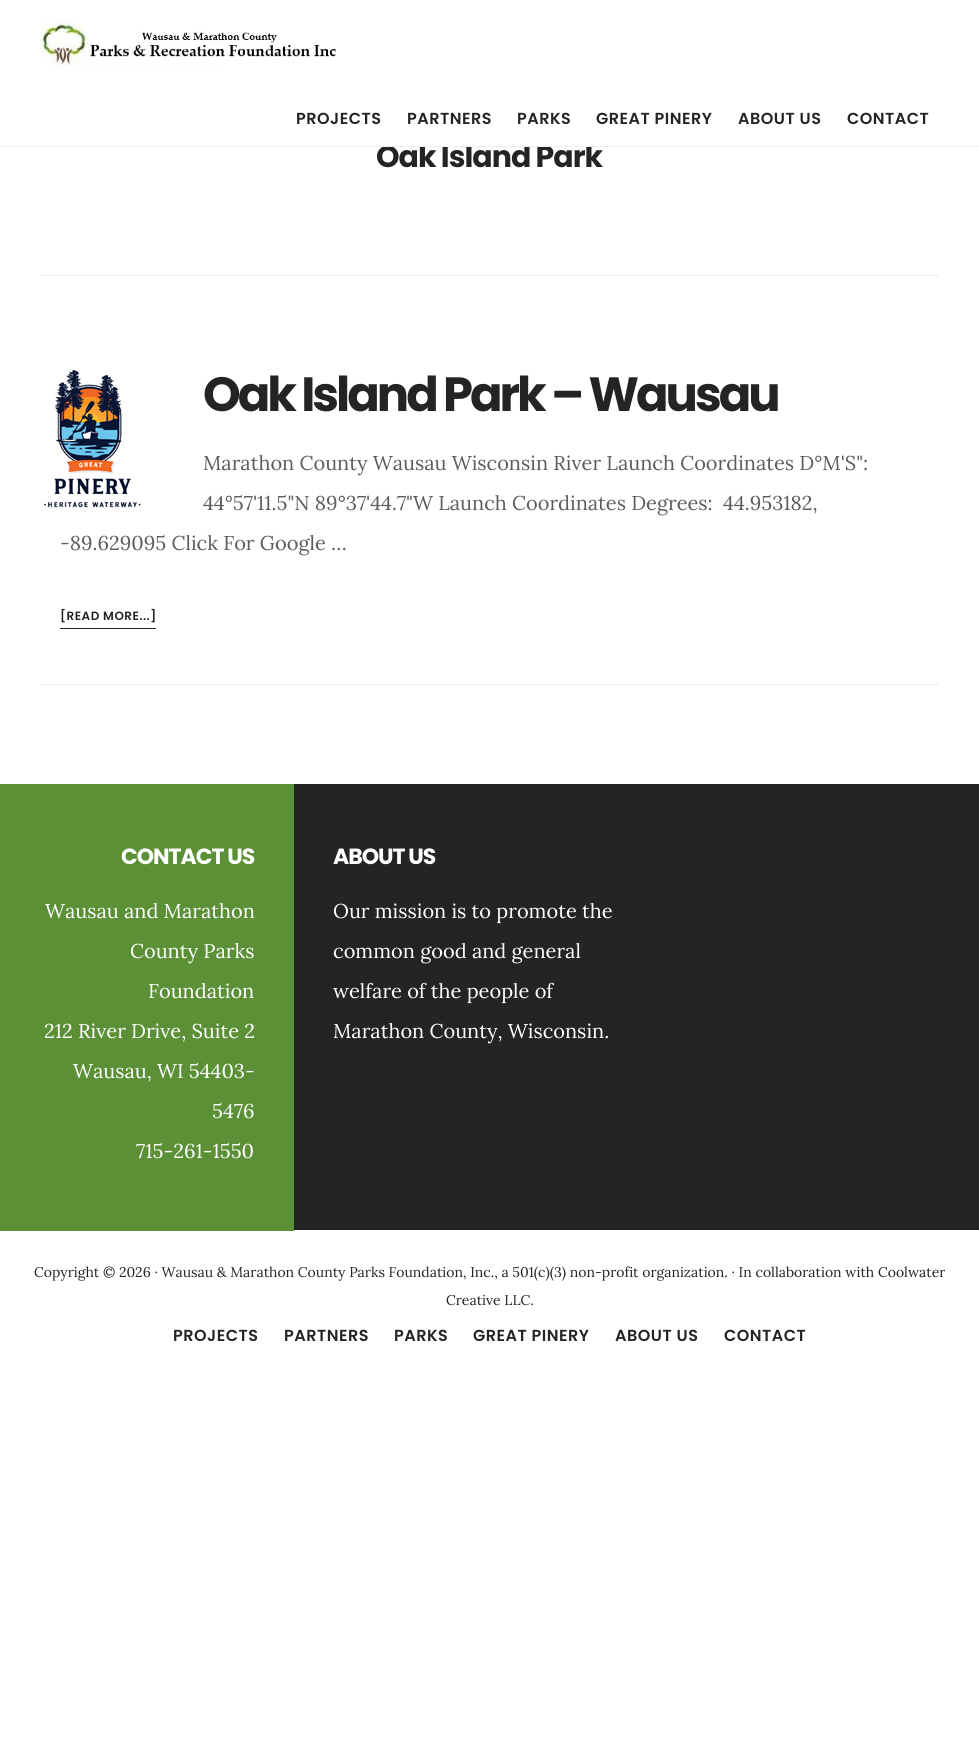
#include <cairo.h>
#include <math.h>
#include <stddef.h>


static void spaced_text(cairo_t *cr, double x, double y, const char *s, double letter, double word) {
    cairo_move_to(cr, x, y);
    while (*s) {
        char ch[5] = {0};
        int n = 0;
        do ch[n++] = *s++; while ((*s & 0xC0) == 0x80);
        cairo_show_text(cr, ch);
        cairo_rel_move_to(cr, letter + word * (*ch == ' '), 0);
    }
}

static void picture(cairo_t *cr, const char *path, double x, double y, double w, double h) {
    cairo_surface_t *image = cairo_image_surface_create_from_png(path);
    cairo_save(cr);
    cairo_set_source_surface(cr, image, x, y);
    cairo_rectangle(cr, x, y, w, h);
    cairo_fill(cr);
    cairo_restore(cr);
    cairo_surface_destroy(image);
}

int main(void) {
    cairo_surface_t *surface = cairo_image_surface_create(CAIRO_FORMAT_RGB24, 979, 1737);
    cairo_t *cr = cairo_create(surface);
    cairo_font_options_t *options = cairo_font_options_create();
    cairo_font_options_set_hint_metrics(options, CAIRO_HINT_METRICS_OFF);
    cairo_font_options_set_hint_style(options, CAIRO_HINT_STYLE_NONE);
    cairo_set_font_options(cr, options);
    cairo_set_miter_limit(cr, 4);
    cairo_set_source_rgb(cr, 1, 1, 1);
    cairo_paint(cr);
    cairo_select_font_face(cr, "Poppins", CAIRO_FONT_SLANT_NORMAL, CAIRO_FONT_WEIGHT_BOLD);
    cairo_set_font_size(cr, 30);
    cairo_set_source_rgb(cr, 0.137, 0.145, 0.145);
    spaced_text(cr, 376, 167, "Oak Island Park", -1, 0);
    cairo_set_source_rgb(cr, 1, 1, 1);
    cairo_rectangle(cr, 385, 144, 207, 2);
    cairo_fill(cr);
    cairo_set_source_rgb(cr, 0.933, 0.933, 0.933);
    cairo_rectangle(cr, 0, 146, 979, 1);
    cairo_fill(cr);
    picture(cr, "img1.png", 40, 21, 296, 45);
    cairo_select_font_face(cr, "Poppins SemiBold", CAIRO_FONT_SLANT_NORMAL, CAIRO_FONT_WEIGHT_NORMAL);
    cairo_set_font_size(cr, 16);
    cairo_set_source_rgb(cr, 0.137, 0.145, 0.145);
    spaced_text(cr, 296, 124, "PROJECTS", 0.5, 0);
    spaced_text(cr, 407, 124, "PARTNERS", 0.5, 0);
    spaced_text(cr, 517, 124, "PARKS", 0.5, 0);
    spaced_text(cr, 596, 124, "GREAT PINERY", 0.5, 0);
    spaced_text(cr, 738, 124, "ABOUT US", 0.5, 0);
    spaced_text(cr, 847, 124, "CONTACT", 0.5, 0);
    cairo_set_source_rgb(cr, 0.933, 0.933, 0.933);
    cairo_rectangle(cr, 40, 275, 899, 1);
    cairo_fill(cr);
    cairo_rectangle(cr, 40, 684, 899, 1);
    cairo_fill(cr);
    picture(cr, "img2.png", 44, 369, 97, 139);
    cairo_select_font_face(cr, "Poppins", CAIRO_FONT_SLANT_NORMAL, CAIRO_FONT_WEIGHT_BOLD);
    cairo_set_font_size(cr, 48);
    cairo_set_source_rgb(cr, 0.137, 0.145, 0.145);
    spaced_text(cr, 203, 411, "Oak Island Park – Wausau", -3, 0);
    cairo_select_font_face(cr, "Lora", CAIRO_FONT_SLANT_NORMAL, CAIRO_FONT_WEIGHT_NORMAL);
    cairo_set_font_size(cr, 20);
    cairo_set_source_rgb(cr, 0.357, 0.369, 0.369);
    cairo_move_to(cr, 203, 470);
    cairo_show_text(cr, "Marathon County Wausau Wisconsin River Launch Coordinates D°M'S\":");
    cairo_move_to(cr, 203, 510);
    cairo_show_text(cr, "44°57'11.5\"N 89°37'44.7\"W Launch Coordinates Degrees:  44.953182,");
    cairo_move_to(cr, 60, 550);
    cairo_show_text(cr, "-89.629095 Click For Google …");
    cairo_set_source_rgb(cr, 0.137, 0.145, 0.145);
    cairo_rectangle(cr, 60, 628, 96, 1);
    cairo_fill(cr);
    cairo_select_font_face(cr, "Poppins SemiBold", CAIRO_FONT_SLANT_NORMAL, CAIRO_FONT_WEIGHT_NORMAL);
    cairo_set_font_size(cr, 12);
    spaced_text(cr, 60, 620, "[READ MORE...]", 0.5, 0);
    cairo_rectangle(cr, 294, 784, 685, 446);
    cairo_fill(cr);
    cairo_set_source_rgb(cr, 0.361, 0.565, 0.216);
    cairo_rectangle(cr, 0, 784, 294, 447);
    cairo_fill(cr);
    cairo_select_font_face(cr, "Poppins", CAIRO_FONT_SLANT_NORMAL, CAIRO_FONT_WEIGHT_BOLD);
    cairo_set_font_size(cr, 22);
    cairo_set_source_rgb(cr, 1, 1, 1);
    spaced_text(cr, 121, 864, "CONTACT US", -1, 0);
    cairo_select_font_face(cr, "Lora", CAIRO_FONT_SLANT_NORMAL, CAIRO_FONT_WEIGHT_NORMAL);
    cairo_set_font_size(cr, 20);
    cairo_move_to(cr, 45, 918);
    cairo_show_text(cr, "Wausau and Marathon");
    cairo_move_to(cr, 130, 958);
    cairo_show_text(cr, "County Parks");
    cairo_move_to(cr, 148, 998);
    cairo_show_text(cr, "Foundation");
    cairo_move_to(cr, 44, 1038);
    cairo_show_text(cr, "212 River Drive, Suite 2");
    cairo_move_to(cr, 73, 1078);
    cairo_show_text(cr, "Wausau, WI 54403-");
    cairo_move_to(cr, 212, 1118);
    cairo_show_text(cr, "5476");
    cairo_move_to(cr, 136, 1158);
    cairo_show_text(cr, "715-261-1550");
    cairo_select_font_face(cr, "Poppins", CAIRO_FONT_SLANT_NORMAL, CAIRO_FONT_WEIGHT_BOLD);
    cairo_set_font_size(cr, 22);
    spaced_text(cr, 333, 864, "ABOUT US", -1, 0);
    cairo_select_font_face(cr, "Lora", CAIRO_FONT_SLANT_NORMAL, CAIRO_FONT_WEIGHT_NORMAL);
    cairo_set_font_size(cr, 20);
    cairo_move_to(cr, 333, 918);
    cairo_show_text(cr, "Our mission is to promote the");
    cairo_move_to(cr, 333, 958);
    cairo_show_text(cr, "common good and general");
    cairo_move_to(cr, 333, 998);
    cairo_show_text(cr, "welfare of the people of");
    cairo_move_to(cr, 333, 1038);
    cairo_show_text(cr, "Marathon County, Wisconsin.");
    cairo_set_font_size(cr, 14);
    cairo_set_source_rgb(cr, 0.137, 0.145, 0.145);
    cairo_move_to(cr, 34, 1277);
    cairo_show_text(cr, "Copyright © 2026 · Wausau & Marathon County Parks Foundation, Inc., a 501(c)(3) non-profit organization. · In collaboration with Coolwater");
    cairo_move_to(cr, 446, 1305);
    cairo_show_text(cr, "Creative LLC.");
    cairo_select_font_face(cr, "Poppins SemiBold", CAIRO_FONT_SLANT_NORMAL, CAIRO_FONT_WEIGHT_NORMAL);
    cairo_set_font_size(cr, 16);
    spaced_text(cr, 173, 1341, "PROJECTS", 0.5, 0);
    spaced_text(cr, 284, 1341, "PARTNERS", 0.5, 0);
    spaced_text(cr, 394, 1341, "PARKS", 0.5, 0);
    spaced_text(cr, 473, 1341, "GREAT PINERY", 0.5, 0);
    spaced_text(cr, 615, 1341, "ABOUT US", 0.5, 0);
    spaced_text(cr, 724, 1341, "CONTACT", 0.5, 0);
    cairo_surface_write_to_png(surface, "page.png");
    cairo_font_options_destroy(options);
    cairo_destroy(cr);
    cairo_surface_destroy(surface);
    return 0;
}
